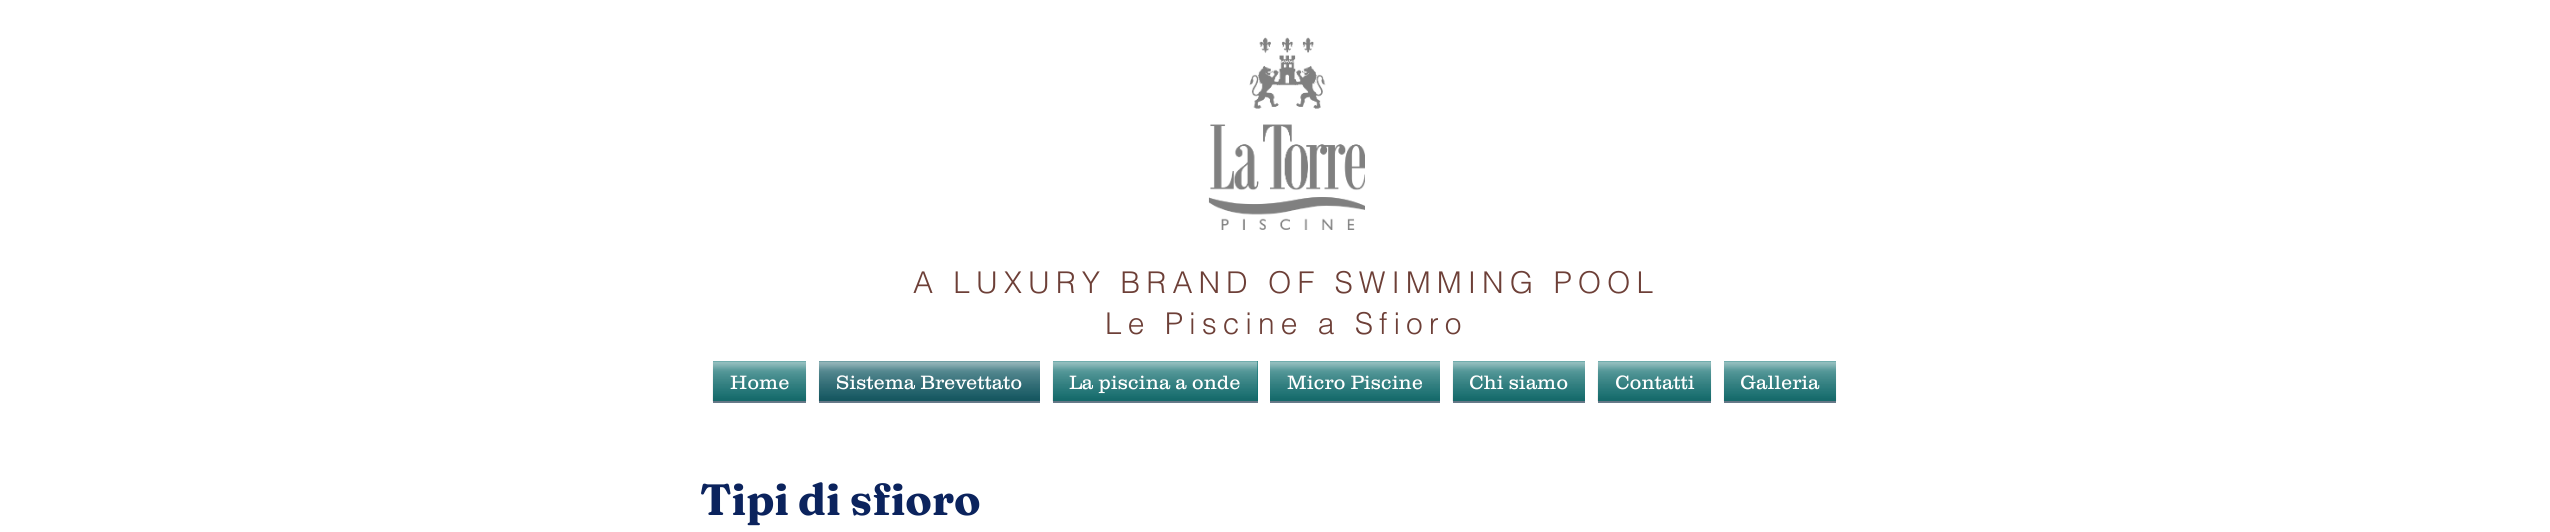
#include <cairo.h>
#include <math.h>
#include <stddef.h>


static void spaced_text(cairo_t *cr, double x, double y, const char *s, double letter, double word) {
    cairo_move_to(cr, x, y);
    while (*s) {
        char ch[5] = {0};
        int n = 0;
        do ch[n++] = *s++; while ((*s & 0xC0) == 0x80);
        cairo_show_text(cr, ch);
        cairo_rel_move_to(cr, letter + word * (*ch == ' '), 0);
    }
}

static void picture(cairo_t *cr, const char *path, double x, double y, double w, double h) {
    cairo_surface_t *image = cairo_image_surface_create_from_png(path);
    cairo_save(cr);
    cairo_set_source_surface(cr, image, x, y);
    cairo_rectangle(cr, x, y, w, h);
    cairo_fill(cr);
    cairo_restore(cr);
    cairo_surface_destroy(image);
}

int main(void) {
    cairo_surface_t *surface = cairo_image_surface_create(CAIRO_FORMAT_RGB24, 2550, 532);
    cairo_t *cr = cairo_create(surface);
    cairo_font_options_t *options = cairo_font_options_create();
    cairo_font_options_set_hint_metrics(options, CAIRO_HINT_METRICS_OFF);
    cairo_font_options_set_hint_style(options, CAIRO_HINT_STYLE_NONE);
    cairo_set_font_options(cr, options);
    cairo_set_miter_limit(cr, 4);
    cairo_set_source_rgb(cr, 1, 1, 1);
    cairo_paint(cr);
    picture(cr, "img1.png", 1208, 37, 157, 193);
    cairo_select_font_face(cr, "helvetica Light", CAIRO_FONT_SLANT_NORMAL, CAIRO_FONT_WEIGHT_NORMAL);
    cairo_set_font_size(cr, 30);
    cairo_set_source_rgb(cr, 0.427, 0.247, 0.216);
    spaced_text(cr, 913, 293, "A LUXURY BRAND OF SWIMMING POOL", 6, 0);
    spaced_text(cr, 1105, 334, "Le Piscine a Sfioro", 6, 0);
    cairo_set_source_rgb(cr, 0.404, 0.478, 0.537);
    cairo_rectangle(cr, 713, 401, 93, 2);
    cairo_fill(cr);
    cairo_set_source_rgb(cr, 0, 0.424, 0.427);
    cairo_rectangle(cr, 713, 361, 93, 40);
    cairo_fill(cr);
    picture(cr, "img2.png", 713, 361, 93, 40);
    picture(cr, "img3.png", 712, 362, 95, 40);
    cairo_select_font_face(cr, "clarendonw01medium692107 Light", CAIRO_FONT_SLANT_NORMAL, CAIRO_FONT_WEIGHT_NORMAL);
    cairo_set_font_size(cr, 20);
    cairo_set_source_rgb(cr, 1, 1, 1);
    cairo_move_to(cr, 730, 389);
    cairo_show_text(cr, "Home");
    cairo_set_source_rgb(cr, 0.404, 0.478, 0.537);
    cairo_rectangle(cr, 819, 401, 221, 2);
    cairo_fill(cr);
    cairo_set_source_rgb(cr, 0, 0.325, 0.373);
    cairo_rectangle(cr, 819, 361, 221, 40);
    cairo_fill(cr);
    picture(cr, "img4.png", 819, 361, 221, 40);
    picture(cr, "img5.png", 818, 362, 222, 40);
    cairo_set_source_rgb(cr, 1, 1, 1);
    cairo_move_to(cr, 836, 389);
    cairo_show_text(cr, "Sistema Brevettato");
    cairo_set_source_rgb(cr, 0.404, 0.478, 0.537);
    cairo_new_path(cr);
    cairo_move_to(cr, 1053, 401);
    cairo_line_to(cr, 1053, 403);
    cairo_line_to(cr, 1258, 403);
    cairo_line_to(cr, 1258, 363);
    cairo_line_to(cr, 1258, 401);
    cairo_close_path(cr);
    cairo_fill(cr);
    cairo_set_source_rgb(cr, 0, 0.424, 0.427);
    cairo_rectangle(cr, 1053, 361, 205, 40);
    cairo_fill(cr);
    picture(cr, "img6.png", 1053, 361, 205, 40);
    picture(cr, "img7.png", 1052, 362, 206, 40);
    cairo_set_source_rgb(cr, 1, 1, 1);
    cairo_move_to(cr, 1069, 389);
    cairo_show_text(cr, "La piscina a onde");
    cairo_set_source_rgb(cr, 0.404, 0.478, 0.537);
    cairo_rectangle(cr, 1270, 401, 170, 2);
    cairo_fill(cr);
    cairo_set_source_rgb(cr, 0, 0.424, 0.427);
    cairo_rectangle(cr, 1270, 361, 170, 40);
    cairo_fill(cr);
    picture(cr, "img8.png", 1270, 361, 170, 40);
    picture(cr, "img9.png", 1270, 362, 170, 40);
    cairo_set_source_rgb(cr, 1, 1, 1);
    cairo_move_to(cr, 1287, 389);
    cairo_show_text(cr, "Micro Piscine");
    cairo_set_source_rgb(cr, 0.404, 0.478, 0.537);
    cairo_rectangle(cr, 1453, 401, 132, 2);
    cairo_fill(cr);
    cairo_set_source_rgb(cr, 0, 0.424, 0.427);
    cairo_rectangle(cr, 1453, 361, 132, 40);
    cairo_fill(cr);
    picture(cr, "img10.png", 1453, 361, 132, 40);
    picture(cr, "img11.png", 1452, 362, 133, 40);
    cairo_set_source_rgb(cr, 1, 1, 1);
    cairo_move_to(cr, 1469, 389);
    cairo_show_text(cr, "Chi siamo");
    cairo_set_source_rgb(cr, 0.404, 0.478, 0.537);
    cairo_rectangle(cr, 1598, 401, 113, 2);
    cairo_fill(cr);
    cairo_set_source_rgb(cr, 0, 0.424, 0.427);
    cairo_rectangle(cr, 1598, 361, 113, 40);
    cairo_fill(cr);
    picture(cr, "img12.png", 1598, 361, 113, 40);
    picture(cr, "img13.png", 1597, 362, 115, 40);
    cairo_set_source_rgb(cr, 1, 1, 1);
    cairo_move_to(cr, 1615, 389);
    cairo_show_text(cr, "Contatti");
    cairo_set_source_rgb(cr, 0.404, 0.478, 0.537);
    cairo_rectangle(cr, 1724, 401, 112, 2);
    cairo_fill(cr);
    cairo_set_source_rgb(cr, 0, 0.424, 0.427);
    cairo_rectangle(cr, 1724, 361, 112, 40);
    cairo_fill(cr);
    picture(cr, "img14.png", 1724, 361, 112, 40);
    picture(cr, "img15.png", 1723, 362, 114, 40);
    cairo_set_source_rgb(cr, 1, 1, 1);
    cairo_move_to(cr, 1740, 389);
    cairo_show_text(cr, "Galleria");
    cairo_select_font_face(cr, "Fraunces", CAIRO_FONT_SLANT_NORMAL, CAIRO_FONT_WEIGHT_BOLD);
    cairo_set_font_size(cr, 43.75);
    cairo_set_source_rgb(cr, 0.043, 0.137, 0.365);
    cairo_move_to(cr, 700, 515);
    cairo_show_text(cr, "Tipi di sfioro");
    cairo_surface_write_to_png(surface, "page.png");
    cairo_font_options_destroy(options);
    cairo_destroy(cr);
    cairo_surface_destroy(surface);
    return 0;
}
